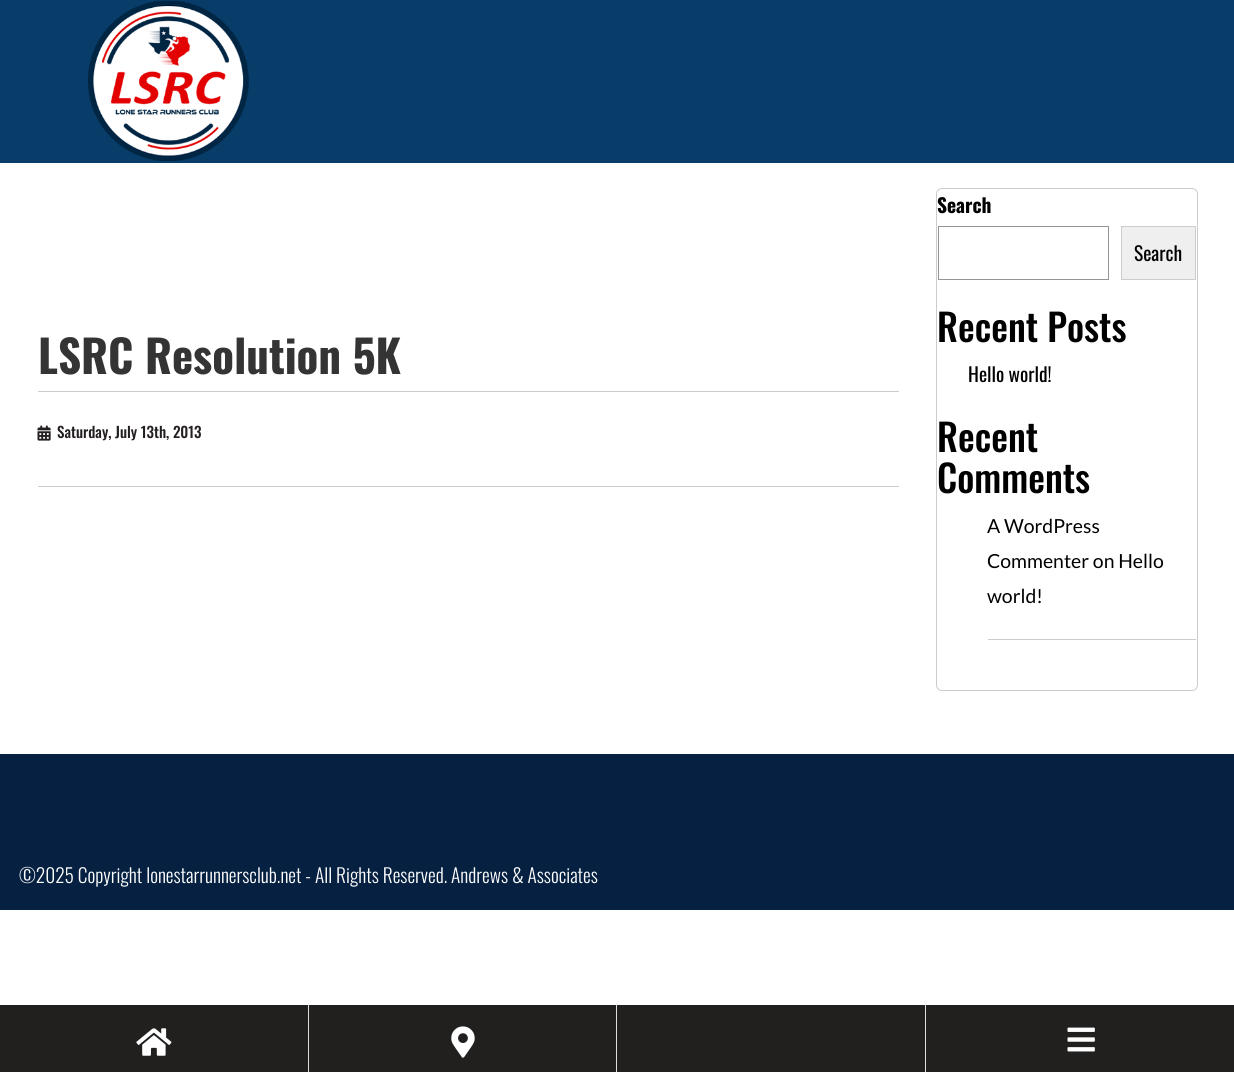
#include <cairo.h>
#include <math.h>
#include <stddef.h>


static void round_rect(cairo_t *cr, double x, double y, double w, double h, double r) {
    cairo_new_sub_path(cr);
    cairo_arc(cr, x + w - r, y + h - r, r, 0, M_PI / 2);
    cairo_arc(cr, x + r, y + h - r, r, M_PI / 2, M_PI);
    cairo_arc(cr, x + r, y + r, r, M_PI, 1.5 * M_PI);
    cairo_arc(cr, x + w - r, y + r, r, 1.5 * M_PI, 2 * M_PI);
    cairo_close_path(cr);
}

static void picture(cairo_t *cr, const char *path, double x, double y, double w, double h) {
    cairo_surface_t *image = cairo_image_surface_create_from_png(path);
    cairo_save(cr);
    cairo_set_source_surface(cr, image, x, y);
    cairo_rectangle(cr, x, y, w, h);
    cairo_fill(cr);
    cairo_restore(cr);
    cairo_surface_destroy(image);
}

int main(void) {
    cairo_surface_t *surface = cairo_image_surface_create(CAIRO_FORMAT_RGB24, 1234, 1072);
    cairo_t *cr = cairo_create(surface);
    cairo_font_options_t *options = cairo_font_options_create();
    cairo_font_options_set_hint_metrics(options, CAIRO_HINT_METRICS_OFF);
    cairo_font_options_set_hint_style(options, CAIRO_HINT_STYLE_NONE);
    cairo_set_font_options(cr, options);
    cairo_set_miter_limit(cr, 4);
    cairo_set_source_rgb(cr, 1, 1, 1);
    cairo_paint(cr);
    cairo_set_source_rgb(cr, 0.031, 0.239, 0.408);
    cairo_rectangle(cr, 0, 0, 1234, 163);
    cairo_fill(cr);
    picture(cr, "img1.png", 88, 0, 161, 161);
    cairo_set_source_rgb(cr, 0.133, 0.122, 0.122);
    cairo_rectangle(cr, 0, 1005, 1234, 67);
    cairo_fill(cr);
    cairo_set_source_rgb(cr, 0.867, 0.867, 0.867);
    cairo_rectangle(cr, 308, 1005, 1, 67);
    cairo_fill(cr);
    picture(cr, "img2.png", 136, 1028, 36, 28);
    cairo_rectangle(cr, 616, 1005, 1, 67);
    cairo_fill(cr);
    picture(cr, "img3.png", 451, 1026, 24, 32);
    cairo_rectangle(cr, 925, 1005, 1, 67);
    cairo_fill(cr);
    picture(cr, "img4.png", 1067, 1027, 28, 25);
    cairo_set_source_rgb(cr, 0.8, 0.8, 0.8);
    cairo_rectangle(cr, 38, 486, 861, 1);
    cairo_fill(cr);
    cairo_rectangle(cr, 38, 391, 861, 1);
    cairo_fill(cr);
    cairo_select_font_face(cr, "Oswald", CAIRO_FONT_SLANT_NORMAL, CAIRO_FONT_WEIGHT_BOLD);
    cairo_set_font_size(cr, 45);
    cairo_set_source_rgb(cr, 0.204, 0.204, 0.204);
    cairo_move_to(cr, 38, 374);
    cairo_show_text(cr, "LSRC Resolution 5K");
    picture(cr, "img5.png", 37, 425, 14, 16);
    cairo_select_font_face(cr, "Oswald Medium", CAIRO_FONT_SLANT_NORMAL, CAIRO_FONT_WEIGHT_NORMAL);
    cairo_set_font_size(cr, 15);
    cairo_set_source_rgb(cr, 0.137, 0.122, 0.125);
    cairo_move_to(cr, 57, 438);
    cairo_show_text(cr, "Saturday, July 13th, 2013");
    round_rect(cr, 936.5, 188.5, 261, 502, 5.5);
    cairo_set_source_rgb(cr, 0.8, 0.8, 0.8);
    cairo_set_line_width(cr, 1);
    cairo_stroke(cr);
    cairo_select_font_face(cr, "Oswald", CAIRO_FONT_SLANT_NORMAL, CAIRO_FONT_WEIGHT_BOLD);
    cairo_set_font_size(cr, 19.4);
    cairo_set_source_rgb(cr, 0, 0, 0);
    cairo_move_to(cr, 937, 213);
    cairo_show_text(cr, "Search");
    cairo_rectangle(cr, 938.5, 226.5, 170, 53);
    cairo_set_source_rgb(cr, 0.58, 0.58, 0.58);
    cairo_stroke(cr);
    cairo_set_source_rgb(cr, 0.937, 0.937, 0.937);
    cairo_rectangle(cr, 1121.5, 226.5, 74, 53);
    cairo_fill_preserve(cr);
    cairo_set_source_rgb(cr, 0.8, 0.8, 0.8);
    cairo_stroke(cr);
    cairo_select_font_face(cr, "Oswald", CAIRO_FONT_SLANT_NORMAL, CAIRO_FONT_WEIGHT_NORMAL);
    cairo_set_source_rgb(cr, 0, 0, 0);
    cairo_move_to(cr, 1134, 261);
    cairo_show_text(cr, "Search");
    cairo_select_font_face(cr, "Oswald Medium", CAIRO_FONT_SLANT_NORMAL, CAIRO_FONT_WEIGHT_NORMAL);
    cairo_set_font_size(cr, 37.5);
    cairo_move_to(cr, 937, 342);
    cairo_show_text(cr, "Recent Posts");
    cairo_select_font_face(cr, "Oswald", CAIRO_FONT_SLANT_NORMAL, CAIRO_FONT_WEIGHT_NORMAL);
    cairo_set_font_size(cr, 19.4);
    cairo_move_to(cr, 968, 382);
    cairo_show_text(cr, "Hello world!");
    cairo_select_font_face(cr, "Oswald Medium", CAIRO_FONT_SLANT_NORMAL, CAIRO_FONT_WEIGHT_NORMAL);
    cairo_set_font_size(cr, 37.5);
    cairo_move_to(cr, 937, 452);
    cairo_show_text(cr, "Recent");
    cairo_move_to(cr, 937, 493);
    cairo_show_text(cr, "Comments");
    cairo_set_source_rgb(cr, 0.8, 0.8, 0.8);
    cairo_rectangle(cr, 988, 639, 208, 1);
    cairo_fill(cr);
    cairo_select_font_face(cr, "Lato", CAIRO_FONT_SLANT_NORMAL, CAIRO_FONT_WEIGHT_NORMAL);
    cairo_set_font_size(cr, 19.4);
    cairo_set_source_rgb(cr, 0, 0, 0);
    cairo_move_to(cr, 987, 533);
    cairo_show_text(cr, "A WordPress");
    cairo_move_to(cr, 987, 568);
    cairo_show_text(cr, "Commenter on Hello");
    cairo_move_to(cr, 987, 603);
    cairo_show_text(cr, "world!");
    cairo_set_source_rgb(cr, 0.02, 0.125, 0.251);
    cairo_rectangle(cr, 0, 754, 1234, 156);
    cairo_fill(cr);
    cairo_select_font_face(cr, "Oswald Light", CAIRO_FONT_SLANT_NORMAL, CAIRO_FONT_WEIGHT_NORMAL);
    cairo_set_source_rgb(cr, 1, 1, 1);
    cairo_move_to(cr, 19, 883);
    cairo_show_text(cr, "©2025 Copyright lonestarrunnersclub.net - All Rights Reserved. Andrews & Associates");
    cairo_surface_write_to_png(surface, "page.png");
    cairo_font_options_destroy(options);
    cairo_destroy(cr);
    cairo_surface_destroy(surface);
    return 0;
}
